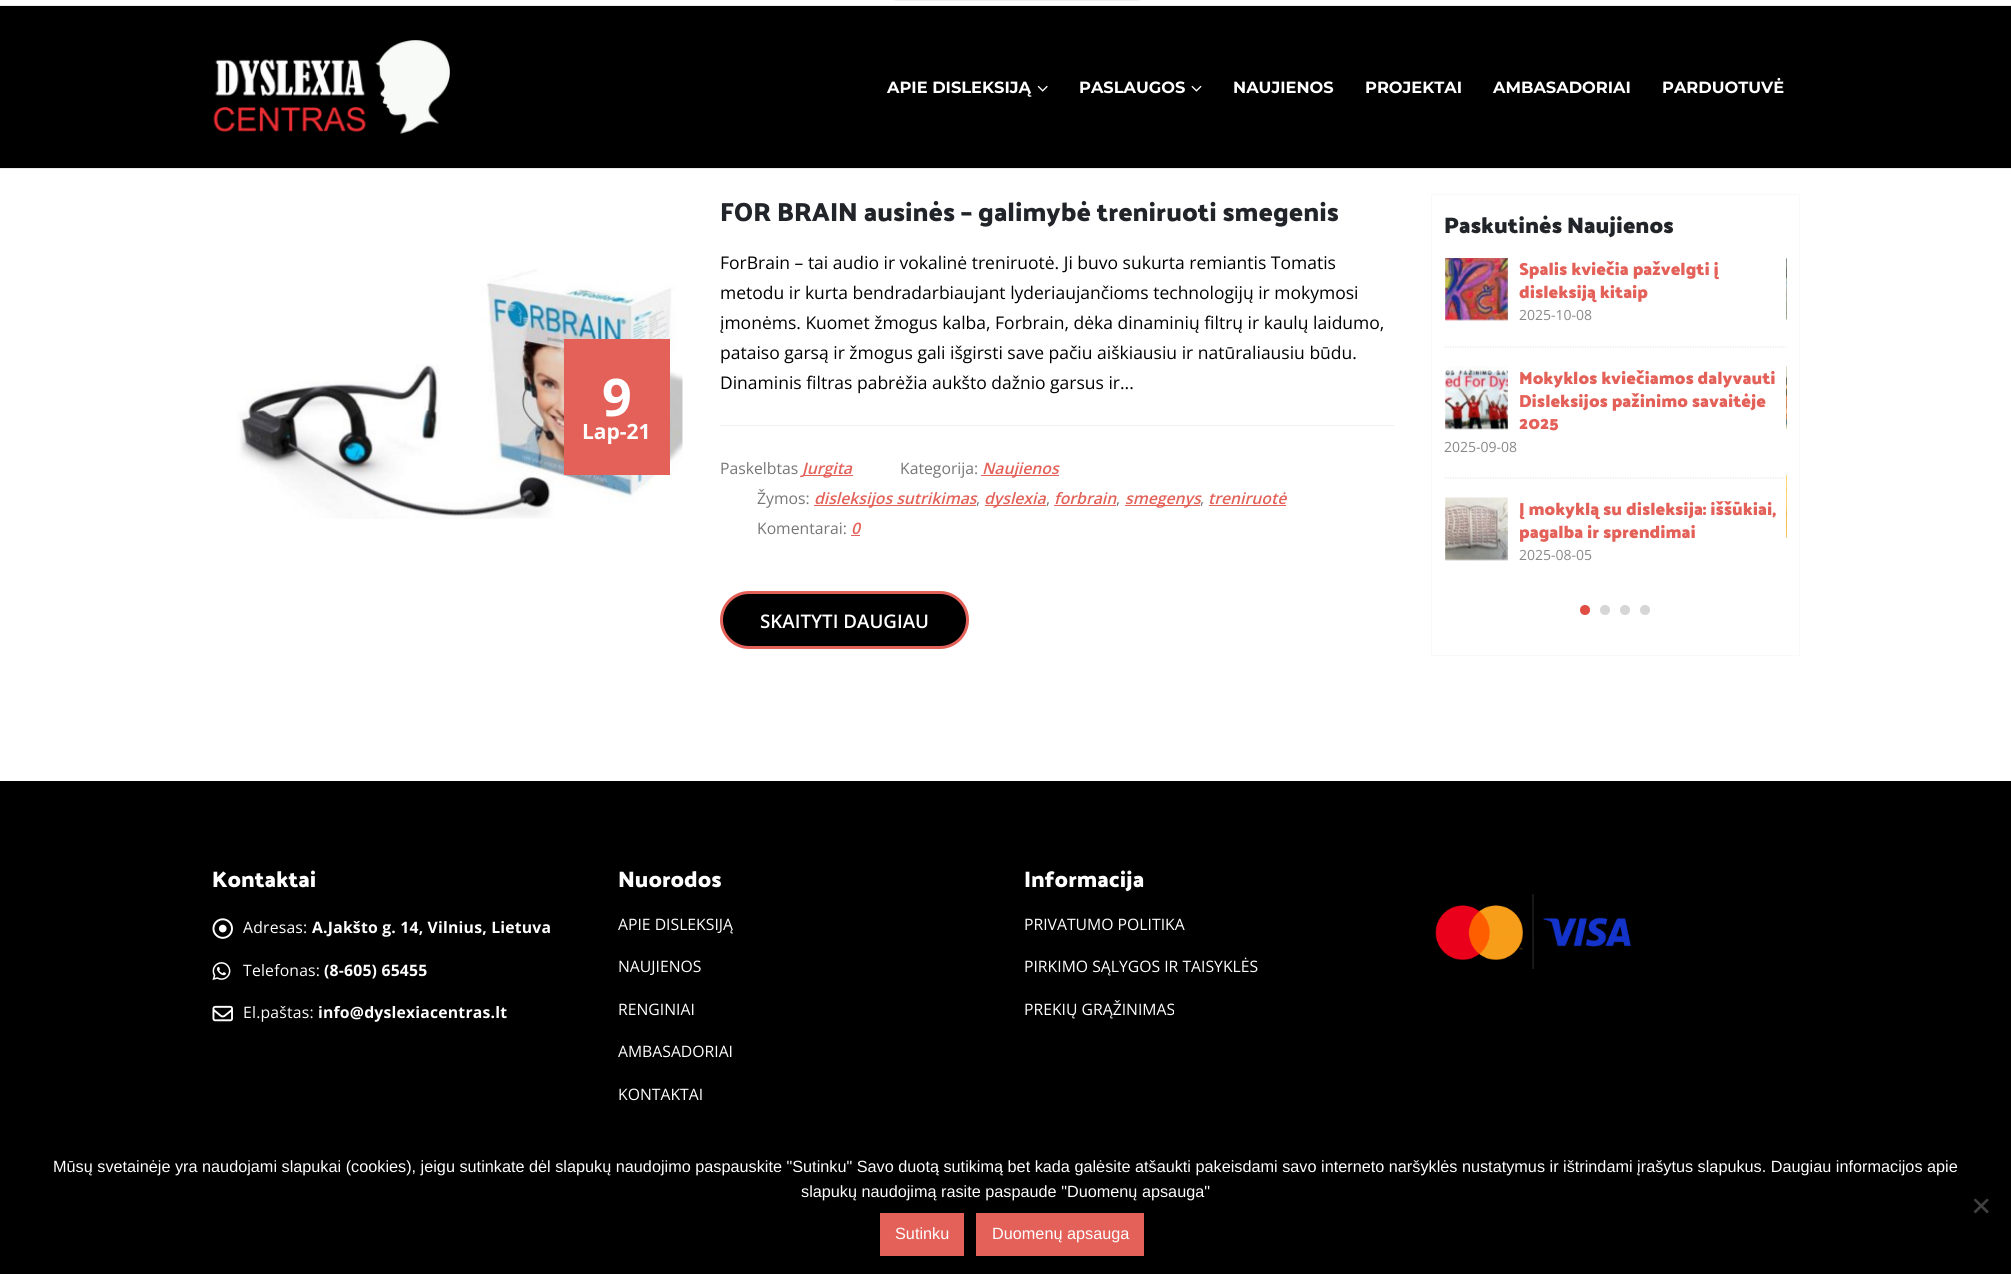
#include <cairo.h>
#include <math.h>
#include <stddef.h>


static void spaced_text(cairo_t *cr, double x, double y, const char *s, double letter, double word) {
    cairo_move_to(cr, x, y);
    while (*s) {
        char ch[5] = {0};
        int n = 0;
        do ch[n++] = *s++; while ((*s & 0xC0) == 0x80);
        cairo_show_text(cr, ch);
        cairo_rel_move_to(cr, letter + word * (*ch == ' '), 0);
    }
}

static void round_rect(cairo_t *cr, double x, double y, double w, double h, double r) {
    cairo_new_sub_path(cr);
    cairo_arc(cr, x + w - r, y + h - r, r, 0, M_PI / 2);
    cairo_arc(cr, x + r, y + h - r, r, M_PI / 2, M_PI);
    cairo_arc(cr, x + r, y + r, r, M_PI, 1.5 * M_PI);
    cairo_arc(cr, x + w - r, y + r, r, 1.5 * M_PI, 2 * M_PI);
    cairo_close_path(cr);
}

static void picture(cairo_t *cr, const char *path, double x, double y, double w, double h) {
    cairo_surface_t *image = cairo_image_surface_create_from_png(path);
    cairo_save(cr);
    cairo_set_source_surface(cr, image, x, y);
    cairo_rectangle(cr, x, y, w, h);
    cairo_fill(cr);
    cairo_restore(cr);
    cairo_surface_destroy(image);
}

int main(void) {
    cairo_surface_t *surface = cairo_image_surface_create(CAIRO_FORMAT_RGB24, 2011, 1274);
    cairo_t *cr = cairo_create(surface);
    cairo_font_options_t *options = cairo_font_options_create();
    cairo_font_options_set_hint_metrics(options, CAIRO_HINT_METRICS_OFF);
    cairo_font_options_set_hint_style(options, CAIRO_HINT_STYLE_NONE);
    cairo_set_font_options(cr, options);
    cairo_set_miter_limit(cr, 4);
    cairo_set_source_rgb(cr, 1, 1, 1);
    cairo_paint(cr);
    cairo_set_source_rgb(cr, 0, 0, 0);
    cairo_rectangle(cr, 0, 6, 2011, 162);
    cairo_fill(cr);
    cairo_set_source_rgb(cr, 0.918, 0.918, 0.918);
    cairo_rectangle(cr, 0, 168, 2011, 1);
    cairo_fill(cr);
    cairo_set_source_rgb(cr, 0.929, 0.929, 0.929);
    cairo_rectangle(cr, 0, 5, 2011, 1);
    cairo_fill(cr);
    round_rect(cr, 880.5, -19.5, 273, 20, 18);
    cairo_set_source_rgb(cr, 0.933, 0.933, 0.933);
    cairo_set_line_width(cr, 1);
    cairo_stroke(cr);
    picture(cr, "img1.png", 213, 40, 237, 94);
    cairo_select_font_face(cr, "Montserrat", CAIRO_FONT_SLANT_NORMAL, CAIRO_FONT_WEIGHT_BOLD);
    cairo_set_font_size(cr, 16.25);
    cairo_set_source_rgb(cr, 1, 1, 1);
    cairo_move_to(cr, 887, 93);
    cairo_show_text(cr, "APIE DISLEKSIJĄ");
    picture(cr, "img2.png", 1037, 85, 11, 7);
    cairo_move_to(cr, 1079, 93);
    cairo_show_text(cr, "PASLAUGOS");
    picture(cr, "img3.png", 1191, 85, 11, 7);
    cairo_move_to(cr, 1233, 93);
    cairo_show_text(cr, "NAUJIENOS");
    cairo_move_to(cr, 1365, 93);
    cairo_show_text(cr, "PROJEKTAI");
    cairo_move_to(cr, 1493, 93);
    cairo_show_text(cr, "AMBASADORIAI");
    cairo_move_to(cr, 1662, 93);
    cairo_show_text(cr, "PARDUOTUVĖ");
    picture(cr, "img4.png", 237, 269, 446, 250);
    cairo_set_source_rgb(cr, 0.89, 0.38, 0.349);
    cairo_rectangle(cr, 564, 339, 106, 136);
    cairo_fill(cr);
    cairo_select_font_face(cr, "Open Sans", CAIRO_FONT_SLANT_NORMAL, CAIRO_FONT_WEIGHT_BOLD);
    cairo_set_font_size(cr, 52);
    cairo_set_source_rgb(cr, 1, 1, 1);
    cairo_move_to(cr, 602, 416);
    cairo_show_text(cr, "9");
    cairo_set_font_size(cr, 21);
    cairo_move_to(cr, 582, 439);
    cairo_show_text(cr, "Lap-21");
    cairo_select_font_face(cr, "Palanquin Dark SemiBold", CAIRO_FONT_SLANT_NORMAL, CAIRO_FONT_WEIGHT_NORMAL);
    cairo_set_font_size(cr, 26.25);
    cairo_set_source_rgb(cr, 0.129, 0.145, 0.161);
    cairo_move_to(cr, 720, 221);
    cairo_show_text(cr, "FOR BRAIN ausinės – galimybė treniruoti smegenis");
    cairo_select_font_face(cr, "Open Sans", CAIRO_FONT_SLANT_NORMAL, CAIRO_FONT_WEIGHT_NORMAL);
    cairo_set_font_size(cr, 17.5);
    cairo_set_source_rgb(cr, 0, 0, 0);
    cairo_move_to(cr, 720, 269);
    cairo_show_text(cr, "ForBrain – tai audio ir vokalinė treniruotė. Ji buvo sukurta remiantis Tomatis");
    cairo_move_to(cr, 720, 299);
    cairo_show_text(cr, "metodu ir kurta bendradarbiaujant lyderiaujančioms technologijų ir mokymosi");
    cairo_move_to(cr, 720, 329);
    cairo_show_text(cr, "įmonėms. Kuomet žmogus kalba, Forbrain, dėka dinaminių filtrų ir kaulų laidumo,");
    cairo_move_to(cr, 720, 359);
    cairo_show_text(cr, "pataiso garsą ir žmogus gali išgirsti save pačiu aiškiausiu ir natūraliausiu būdu.");
    cairo_move_to(cr, 720, 389);
    cairo_show_text(cr, "Dinaminis filtras pabrėžia aukšto dažnio garsus ir...");
    cairo_set_source_rgb(cr, 0.941, 0.941, 0.941);
    cairo_rectangle(cr, 720, 425, 674, 1);
    cairo_fill(cr);
    cairo_set_font_size(cr, 15.75);
    cairo_set_source_rgb(cr, 0.467, 0.467, 0.467);
    cairo_move_to(cr, 720, 474);
    cairo_show_text(cr, "Paskelbtas");
    cairo_set_source_rgb(cr, 0.89, 0.38, 0.349);
    cairo_rectangle(cr, 803, 475, 50, 1);
    cairo_fill(cr);
    cairo_select_font_face(cr, "Open Sans SemiBold", CAIRO_FONT_SLANT_ITALIC, CAIRO_FONT_WEIGHT_NORMAL);
    cairo_move_to(cr, 802, 474);
    cairo_show_text(cr, "Jurgita");
    cairo_select_font_face(cr, "Open Sans", CAIRO_FONT_SLANT_NORMAL, CAIRO_FONT_WEIGHT_NORMAL);
    cairo_set_source_rgb(cr, 0.467, 0.467, 0.467);
    cairo_move_to(cr, 900, 474);
    cairo_show_text(cr, "Kategorija:");
    cairo_set_source_rgb(cr, 0.89, 0.38, 0.349);
    cairo_rectangle(cr, 981, 475, 78, 1);
    cairo_fill(cr);
    cairo_select_font_face(cr, "Open Sans SemiBold", CAIRO_FONT_SLANT_ITALIC, CAIRO_FONT_WEIGHT_NORMAL);
    cairo_move_to(cr, 982, 474);
    cairo_show_text(cr, "Naujienos");
    cairo_select_font_face(cr, "Open Sans", CAIRO_FONT_SLANT_NORMAL, CAIRO_FONT_WEIGHT_NORMAL);
    cairo_set_source_rgb(cr, 0.467, 0.467, 0.467);
    cairo_move_to(cr, 757, 504);
    cairo_show_text(cr, "Žymos:");
    cairo_set_source_rgb(cr, 0.89, 0.38, 0.349);
    cairo_rectangle(cr, 814, 505, 162, 1);
    cairo_fill(cr);
    cairo_select_font_face(cr, "Open Sans SemiBold", CAIRO_FONT_SLANT_ITALIC, CAIRO_FONT_WEIGHT_NORMAL);
    cairo_move_to(cr, 814, 504);
    cairo_show_text(cr, "disleksijos sutrikimas");
    cairo_rectangle(cr, 985, 505, 61, 1);
    cairo_fill(cr);
    cairo_move_to(cr, 984, 504);
    cairo_show_text(cr, "dyslexia");
    cairo_move_to(cr, 1054, 504);
    cairo_show_text(cr, "forbrain");
    cairo_rectangle(cr, 1054, 505, 62, 1);
    cairo_fill(cr);
    cairo_rectangle(cr, 1125, 505, 75, 1);
    cairo_fill(cr);
    cairo_move_to(cr, 1125, 504);
    cairo_show_text(cr, "smegenys");
    cairo_move_to(cr, 1208, 504);
    cairo_show_text(cr, "treniruotė");
    cairo_rectangle(cr, 1209, 505, 77, 1);
    cairo_fill(cr);
    cairo_select_font_face(cr, "Open Sans", CAIRO_FONT_SLANT_NORMAL, CAIRO_FONT_WEIGHT_NORMAL);
    cairo_set_source_rgb(cr, 0.467, 0.467, 0.467);
    cairo_move_to(cr, 976, 504);
    cairo_show_text(cr, ",");
    cairo_move_to(cr, 1046, 504);
    cairo_show_text(cr, ",");
    cairo_move_to(cr, 1116, 504);
    cairo_show_text(cr, ",");
    cairo_move_to(cr, 1200, 504);
    cairo_show_text(cr, ",");
    cairo_move_to(cr, 757, 534);
    cairo_show_text(cr, "Komentarai:");
    cairo_select_font_face(cr, "Open Sans SemiBold", CAIRO_FONT_SLANT_ITALIC, CAIRO_FONT_WEIGHT_NORMAL);
    cairo_set_source_rgb(cr, 0.89, 0.38, 0.349);
    cairo_move_to(cr, 851, 534);
    cairo_show_text(cr, "0");
    cairo_rectangle(cr, 851, 535, 9, 1);
    cairo_fill(cr);
    cairo_set_source_rgb(cr, 0, 0, 0);
    round_rect(cr, 721.5, 592.5, 246, 55, 27.5);
    cairo_fill_preserve(cr);
    cairo_set_source_rgb(cr, 0.89, 0.38, 0.349);
    cairo_set_line_width(cr, 3);
    cairo_stroke(cr);
    cairo_select_font_face(cr, "Open Sans SemiBold", CAIRO_FONT_SLANT_NORMAL, CAIRO_FONT_WEIGHT_NORMAL);
    cairo_set_font_size(cr, 18.75);
    cairo_set_source_rgb(cr, 1, 1, 1);
    cairo_move_to(cr, 760, 628);
    cairo_show_text(cr, "SKAITYTI DAUGIAU");
    cairo_rectangle(cr, 1431.5, 194.5, 368, 461);
    cairo_set_source_rgb(cr, 0.976, 0.976, 0.976);
    cairo_set_line_width(cr, 1);
    cairo_stroke(cr);
    cairo_select_font_face(cr, "Palanquin Dark", CAIRO_FONT_SLANT_NORMAL, CAIRO_FONT_WEIGHT_BOLD);
    cairo_set_font_size(cr, 22.5);
    cairo_set_source_rgb(cr, 0.129, 0.145, 0.161);
    cairo_move_to(cr, 1444, 233);
    cairo_show_text(cr, "Paskutinės Naujienos");
    picture(cr, "img5.png", 1445, 258, 63, 63);
    cairo_set_font_size(cr, 17.5);
    cairo_set_source_rgb(cr, 0.89, 0.38, 0.349);
    cairo_move_to(cr, 1519, 275);
    cairo_show_text(cr, "Spalis kviečia pažvelgti į");
    cairo_move_to(cr, 1519, 298);
    cairo_show_text(cr, "disleksiją kitaip");
    cairo_select_font_face(cr, "Open Sans", CAIRO_FONT_SLANT_NORMAL, CAIRO_FONT_WEIGHT_NORMAL);
    cairo_set_font_size(cr, 14);
    cairo_set_source_rgb(cr, 0.537, 0.537, 0.537);
    cairo_move_to(cr, 1519, 320);
    cairo_show_text(cr, "2025-10-08");
    cairo_new_path(cr);
    cairo_move_to(cr, 1445, 347);
    cairo_line_to(cr, 1786, 347);
    cairo_set_source_rgb(cr, 0.906, 0.906, 0.906);
    cairo_set_line_width(cr, 1.2);
    cairo_set_dash(cr, (double[]){1.25, 1.25}, 2, 0);
    cairo_stroke(cr);
    picture(cr, "img6.png", 1445, 366, 63, 64);
    cairo_select_font_face(cr, "Palanquin Dark", CAIRO_FONT_SLANT_NORMAL, CAIRO_FONT_WEIGHT_BOLD);
    cairo_set_font_size(cr, 17.5);
    cairo_set_source_rgb(cr, 0.89, 0.38, 0.349);
    cairo_move_to(cr, 1519, 384);
    cairo_show_text(cr, "Mokyklos kviečiamos dalyvauti");
    cairo_move_to(cr, 1519, 407);
    cairo_show_text(cr, "Disleksijos pažinimo savaitėje");
    cairo_move_to(cr, 1519, 429);
    cairo_show_text(cr, "2025");
    cairo_select_font_face(cr, "Open Sans", CAIRO_FONT_SLANT_NORMAL, CAIRO_FONT_WEIGHT_NORMAL);
    cairo_set_font_size(cr, 14);
    cairo_set_source_rgb(cr, 0.537, 0.537, 0.537);
    cairo_move_to(cr, 1444, 452);
    cairo_show_text(cr, "2025-09-08");
    cairo_new_path(cr);
    cairo_move_to(cr, 1445, 478);
    cairo_line_to(cr, 1786, 478);
    cairo_set_source_rgb(cr, 0.906, 0.906, 0.906);
    cairo_stroke(cr);
    picture(cr, "img7.png", 1445, 497, 63, 64);
    cairo_select_font_face(cr, "Palanquin Dark", CAIRO_FONT_SLANT_NORMAL, CAIRO_FONT_WEIGHT_BOLD);
    cairo_set_font_size(cr, 17.5);
    cairo_set_source_rgb(cr, 0.89, 0.38, 0.349);
    cairo_move_to(cr, 1519, 515);
    cairo_show_text(cr, "Į mokyklą su disleksija: iššūkiai,");
    cairo_move_to(cr, 1519, 538);
    cairo_show_text(cr, "pagalba ir sprendimai");
    cairo_select_font_face(cr, "Open Sans", CAIRO_FONT_SLANT_NORMAL, CAIRO_FONT_WEIGHT_NORMAL);
    cairo_set_font_size(cr, 14);
    cairo_set_source_rgb(cr, 0.537, 0.537, 0.537);
    cairo_move_to(cr, 1519, 560);
    cairo_show_text(cr, "2025-08-05");
    picture(cr, "img8.png", 1786, 258, 1, 63);
    picture(cr, "img9.png", 1786, 365, 1, 65);
    picture(cr, "img10.png", 1786, 474, 1, 64);
    cairo_set_source_rgb(cr, 0.878, 0.302, 0.267);
    cairo_arc(cr, 1585, 610, 5, 0, 2 * M_PI);
    cairo_fill(cr);
    cairo_set_source_rgb(cr, 0.839, 0.839, 0.839);
    cairo_arc(cr, 1605, 610, 5, 0, 2 * M_PI);
    cairo_fill(cr);
    cairo_arc(cr, 1625, 610, 5, 0, 2 * M_PI);
    cairo_fill(cr);
    cairo_arc(cr, 1645, 610, 5, 0, 2 * M_PI);
    cairo_fill(cr);
    cairo_set_source_rgb(cr, 0, 0, 0);
    cairo_rectangle(cr, 0, 781, 2011, 493);
    cairo_fill(cr);
    cairo_select_font_face(cr, "Palanquin Dark SemiBold", CAIRO_FONT_SLANT_NORMAL, CAIRO_FONT_WEIGHT_NORMAL);
    cairo_set_font_size(cr, 22.5);
    cairo_set_source_rgb(cr, 1, 1, 1);
    cairo_move_to(cr, 212, 887);
    cairo_show_text(cr, "Kontaktai");
    picture(cr, "img11.png", 212, 918, 21, 21);
    cairo_select_font_face(cr, "Open Sans", CAIRO_FONT_SLANT_NORMAL, CAIRO_FONT_WEIGHT_NORMAL);
    cairo_set_font_size(cr, 15.75);
    spaced_text(cr, 243, 933, "Adresas:", 0.2, 0);
    cairo_select_font_face(cr, "Open Sans", CAIRO_FONT_SLANT_NORMAL, CAIRO_FONT_WEIGHT_BOLD);
    spaced_text(cr, 312, 933, "A.Jakšto g. 14, Vilnius, Lietuva", 0.2, 0);
    picture(cr, "img12.png", 212, 962, 19, 18);
    cairo_select_font_face(cr, "Open Sans", CAIRO_FONT_SLANT_NORMAL, CAIRO_FONT_WEIGHT_NORMAL);
    spaced_text(cr, 243, 976, "Telefonas:", 0.2, 0);
    cairo_select_font_face(cr, "Open Sans", CAIRO_FONT_SLANT_NORMAL, CAIRO_FONT_WEIGHT_BOLD);
    spaced_text(cr, 324, 976, "(8-605) 65455", 0.2, 0);
    picture(cr, "img13.png", 212, 1005, 21, 17);
    cairo_select_font_face(cr, "Open Sans", CAIRO_FONT_SLANT_NORMAL, CAIRO_FONT_WEIGHT_NORMAL);
    spaced_text(cr, 243, 1018, "El.paštas:", 0.2, 0);
    cairo_select_font_face(cr, "Open Sans", CAIRO_FONT_SLANT_NORMAL, CAIRO_FONT_WEIGHT_BOLD);
    spaced_text(cr, 318, 1018, "info@dyslexiacentras.lt", 0.2, 0);
    cairo_select_font_face(cr, "Palanquin Dark SemiBold", CAIRO_FONT_SLANT_NORMAL, CAIRO_FONT_WEIGHT_NORMAL);
    cairo_set_font_size(cr, 22.5);
    cairo_move_to(cr, 618, 887);
    cairo_show_text(cr, "Nuorodos");
    cairo_select_font_face(cr, "Open Sans", CAIRO_FONT_SLANT_NORMAL, CAIRO_FONT_WEIGHT_NORMAL);
    cairo_set_font_size(cr, 15.75);
    cairo_move_to(cr, 618, 930);
    cairo_show_text(cr, "APIE DISLEKSIJĄ");
    cairo_move_to(cr, 618, 972);
    cairo_show_text(cr, "NAUJIENOS");
    cairo_move_to(cr, 618, 1015);
    cairo_show_text(cr, "RENGINIAI");
    cairo_move_to(cr, 618, 1057);
    cairo_show_text(cr, "AMBASADORIAI");
    cairo_move_to(cr, 618, 1100);
    cairo_show_text(cr, "KONTAKTAI");
    cairo_select_font_face(cr, "Palanquin Dark SemiBold", CAIRO_FONT_SLANT_NORMAL, CAIRO_FONT_WEIGHT_NORMAL);
    cairo_set_font_size(cr, 22.5);
    cairo_move_to(cr, 1024, 887);
    cairo_show_text(cr, "Informacija");
    cairo_select_font_face(cr, "Open Sans", CAIRO_FONT_SLANT_NORMAL, CAIRO_FONT_WEIGHT_NORMAL);
    cairo_set_font_size(cr, 15.75);
    cairo_move_to(cr, 1024, 930);
    cairo_show_text(cr, "PRIVATUMO POLITIKA");
    cairo_move_to(cr, 1024, 972);
    cairo_show_text(cr, "PIRKIMO SĄLYGOS IR TAISYKLĖS");
    cairo_move_to(cr, 1024, 1015);
    cairo_show_text(cr, "PREKIŲ GRĄŽINIMAS");
    picture(cr, "img14.png", 1435, 894, 196, 75);
    cairo_select_font_face(cr, "Liberation Sans", CAIRO_FONT_SLANT_NORMAL, CAIRO_FONT_WEIGHT_NORMAL);
    cairo_set_font_size(cr, 16.25);
    cairo_move_to(cr, 53, 1172);
    cairo_show_text(cr, "Mūsų svetainėje yra naudojami slapukai (cookies), jeigu sutinkate dėl slapukų naudojimo paspauskite \"Sutinku\" Savo duotą sutikimą bet kada galėsite atšaukti pakeisdami savo interneto naršyklės nustatymus ir ištrindami įrašytus slapukus. Daugiau informacijos apie");
    cairo_move_to(cr, 801, 1197);
    cairo_show_text(cr, "slapukų naudojimą rasite paspaude \"Duomenų apsauga\"");
    cairo_set_source_rgb(cr, 0.251, 0.251, 0.251);
    cairo_new_path(cr);
    cairo_move_to(cr, 1987, 1198.5);
    cairo_line_to(cr, 1989, 1200);
    cairo_line_to(cr, 1975.5, 1213.5);
    cairo_line_to(cr, 1973.5, 1211.5);
    cairo_close_path(cr);
    cairo_fill(cr);
    cairo_new_path(cr);
    cairo_move_to(cr, 1973.5, 1200);
    cairo_line_to(cr, 1975.5, 1198.5);
    cairo_line_to(cr, 1989, 1211.5);
    cairo_line_to(cr, 1987, 1213.5);
    cairo_close_path(cr);
    cairo_fill(cr);
    cairo_set_source_rgb(cr, 0.89, 0.38, 0.349);
    cairo_rectangle(cr, 880, 1213, 84, 43);
    cairo_fill(cr);
    cairo_set_source_rgb(cr, 1, 1, 1);
    cairo_move_to(cr, 895, 1239);
    cairo_show_text(cr, "Sutinku");
    cairo_set_source_rgb(cr, 0.89, 0.38, 0.349);
    cairo_rectangle(cr, 976, 1213, 168, 43);
    cairo_fill(cr);
    cairo_set_source_rgb(cr, 1, 1, 1);
    cairo_move_to(cr, 992, 1239);
    cairo_show_text(cr, "Duomenų apsauga");
    cairo_surface_write_to_png(surface, "page.png");
    cairo_font_options_destroy(options);
    cairo_destroy(cr);
    cairo_surface_destroy(surface);
    return 0;
}
